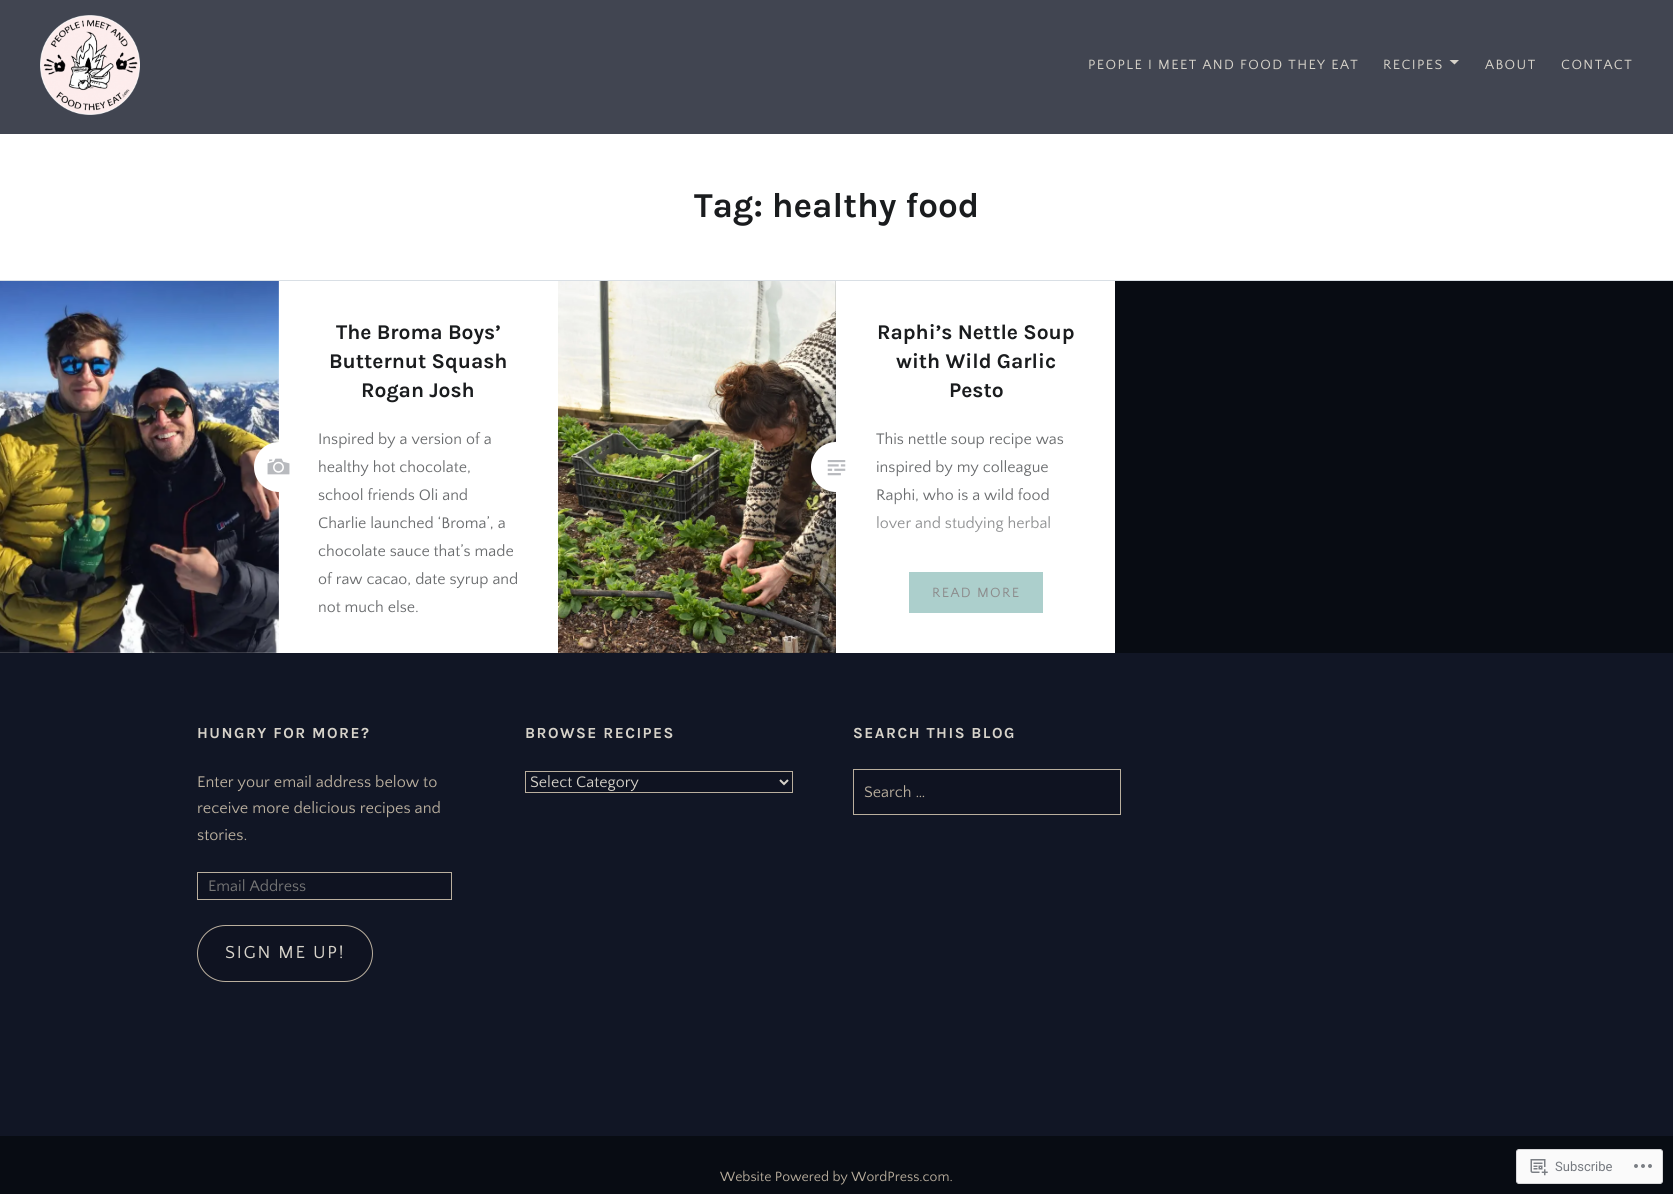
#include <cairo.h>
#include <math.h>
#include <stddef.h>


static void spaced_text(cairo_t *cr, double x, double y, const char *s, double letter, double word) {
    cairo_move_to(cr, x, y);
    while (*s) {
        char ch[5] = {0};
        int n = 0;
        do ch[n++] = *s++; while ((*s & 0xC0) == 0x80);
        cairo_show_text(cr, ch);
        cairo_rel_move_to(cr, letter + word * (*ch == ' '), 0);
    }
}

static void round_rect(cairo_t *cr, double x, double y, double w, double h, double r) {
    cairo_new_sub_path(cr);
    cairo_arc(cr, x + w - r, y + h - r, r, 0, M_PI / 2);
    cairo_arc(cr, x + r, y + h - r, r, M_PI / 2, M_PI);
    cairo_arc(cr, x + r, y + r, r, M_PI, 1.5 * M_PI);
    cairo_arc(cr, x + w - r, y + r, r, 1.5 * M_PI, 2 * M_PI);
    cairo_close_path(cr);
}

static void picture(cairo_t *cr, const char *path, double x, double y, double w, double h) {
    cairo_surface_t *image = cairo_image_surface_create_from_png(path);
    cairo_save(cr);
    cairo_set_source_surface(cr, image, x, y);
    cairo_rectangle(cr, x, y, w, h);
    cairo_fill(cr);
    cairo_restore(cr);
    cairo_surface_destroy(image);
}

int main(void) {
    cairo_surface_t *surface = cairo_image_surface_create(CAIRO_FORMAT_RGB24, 1673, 1194);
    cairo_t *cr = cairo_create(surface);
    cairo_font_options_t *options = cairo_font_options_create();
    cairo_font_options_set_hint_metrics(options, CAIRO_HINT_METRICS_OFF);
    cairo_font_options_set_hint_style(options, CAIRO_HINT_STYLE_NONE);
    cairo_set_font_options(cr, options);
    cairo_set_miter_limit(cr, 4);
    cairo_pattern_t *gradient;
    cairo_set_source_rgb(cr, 1, 1, 1);
    cairo_paint(cr);
    cairo_set_source_rgb(cr, 0.255, 0.271, 0.318);
    cairo_rectangle(cr, 0, 0, 1673, 134);
    cairo_fill(cr);
    picture(cr, "img1.png", 40, 15, 100, 100);
    cairo_select_font_face(cr, "Quattrocento Sans", CAIRO_FONT_SLANT_NORMAL, CAIRO_FONT_WEIGHT_NORMAL);
    cairo_set_font_size(cr, 14);
    cairo_set_source_rgb(cr, 0.843, 0.827, 0.792);
    spaced_text(cr, 1088, 69, "PEOPLE I MEET AND FOOD THEY EAT", 1.4, 0);
    spaced_text(cr, 1383, 69, "RECIPES", 1.4, 0);
    cairo_new_path(cr);
    cairo_move_to(cr, 1449.5, 60);
    cairo_line_to(cr, 1459, 60);
    cairo_line_to(cr, 1454.5, 64.5);
    cairo_close_path(cr);
    cairo_fill(cr);
    spaced_text(cr, 1485, 69, "ABOUT", 1.4, 0);
    spaced_text(cr, 1561, 69, "CONTACT", 1.4, 0);
    cairo_set_source_rgb(cr, 0.035, 0.047, 0.078);
    cairo_rectangle(cr, 558, 281, 1115, 372);
    cairo_fill(cr);
    cairo_set_source_rgb(cr, 0.851, 0.875, 0.898);
    cairo_rectangle(cr, 0, 280, 1673, 1);
    cairo_fill(cr);
    cairo_select_font_face(cr, "Karla", CAIRO_FONT_SLANT_NORMAL, CAIRO_FONT_WEIGHT_BOLD);
    cairo_set_font_size(cr, 35);
    cairo_set_source_rgb(cr, 0.102, 0.11, 0.118);
    cairo_move_to(cr, 694, 217);
    cairo_show_text(cr, "Tag: healthy food");
    picture(cr, "img2.png", 0, 281, 279, 372);
    cairo_set_source_rgb(cr, 1, 1, 1);
    cairo_arc(cr, 279, 467, 25, 0, 2 * M_PI);
    cairo_fill(cr);
    cairo_set_font_size(cr, 21);
    cairo_set_source_rgb(cr, 0.102, 0.11, 0.118);
    cairo_move_to(cr, 336, 339);
    cairo_show_text(cr, "The Broma Boys’");
    cairo_move_to(cr, 329, 368);
    cairo_show_text(cr, "Butternut Squash");
    cairo_move_to(cr, 361, 397);
    cairo_show_text(cr, "Rogan Josh");
    cairo_select_font_face(cr, "Quattrocento Sans", CAIRO_FONT_SLANT_NORMAL, CAIRO_FONT_WEIGHT_NORMAL);
    cairo_set_font_size(cr, 16);
    cairo_set_source_rgb(cr, 0.416, 0.424, 0.431);
    cairo_move_to(cr, 318, 444);
    cairo_show_text(cr, "Inspired by a version of a");
    cairo_move_to(cr, 318, 472);
    cairo_show_text(cr, "healthy hot chocolate,");
    cairo_move_to(cr, 318, 500);
    cairo_show_text(cr, "school friends Oli and");
    cairo_move_to(cr, 318, 528);
    cairo_show_text(cr, "Charlie launched ‘Broma’, a");
    cairo_move_to(cr, 318, 556);
    cairo_show_text(cr, "chocolate sauce that’s made");
    cairo_move_to(cr, 318, 584);
    cairo_show_text(cr, "of raw cacao, date syrup and");
    cairo_move_to(cr, 318, 612);
    cairo_show_text(cr, "not much else.");
    picture(cr, "img3.png", 267, 458, 23, 17);
    picture(cr, "img4.png", 558, 281, 278, 372);
    cairo_set_source_rgb(cr, 1, 1, 1);
    cairo_rectangle(cr, 836, 281, 279, 372);
    cairo_fill(cr);
    cairo_arc(cr, 836, 467, 25, 0, 2 * M_PI);
    cairo_fill(cr);
    cairo_select_font_face(cr, "Karla", CAIRO_FONT_SLANT_NORMAL, CAIRO_FONT_WEIGHT_BOLD);
    cairo_set_font_size(cr, 21);
    cairo_set_source_rgb(cr, 0.102, 0.11, 0.118);
    cairo_move_to(cr, 877, 339);
    cairo_show_text(cr, "Raphi’s Nettle Soup");
    cairo_move_to(cr, 896, 368);
    cairo_show_text(cr, "with Wild Garlic");
    cairo_move_to(cr, 949, 397);
    cairo_show_text(cr, "Pesto");
    cairo_select_font_face(cr, "Quattrocento Sans", CAIRO_FONT_SLANT_NORMAL, CAIRO_FONT_WEIGHT_NORMAL);
    cairo_set_font_size(cr, 16);
    cairo_set_source_rgb(cr, 0.416, 0.424, 0.431);
    cairo_move_to(cr, 876, 444);
    cairo_show_text(cr, "This nettle soup recipe was");
    cairo_move_to(cr, 876, 472);
    cairo_show_text(cr, "inspired by my colleague");
    cairo_move_to(cr, 876, 500);
    cairo_show_text(cr, "Raphi, who is a wild food");
    cairo_move_to(cr, 876, 528);
    cairo_show_text(cr, "lover and studying herbal");
    cairo_set_source_rgb(cr, 0.675, 0.812, 0.8);
    cairo_rectangle(cr, 909, 572, 134, 41);
    cairo_fill(cr);
    cairo_set_font_size(cr, 14);
    cairo_set_source_rgb(cr, 0.549, 0.549, 0.549);
    spaced_text(cr, 932, 597, "READ MORE", 1.4, 0);
    gradient = cairo_pattern_create_linear(976, 495, 976, 613);
    cairo_pattern_add_color_stop_rgba(gradient, 0, 1, 1, 1, 0);
    cairo_pattern_add_color_stop_rgba(gradient, 1, 1, 1, 1, 1);
    cairo_set_source(cr, gradient);
    cairo_pattern_destroy(gradient);
    cairo_rectangle(cr, 876, 498, 174, 34);
    cairo_fill(cr);
    picture(cr, "img5.png", 827, 460, 19, 16);
    cairo_set_source_rgb(cr, 0.067, 0.086, 0.145);
    cairo_rectangle(cr, 0, 653, 1673, 483);
    cairo_fill(cr);
    cairo_select_font_face(cr, "Karla", CAIRO_FONT_SLANT_NORMAL, CAIRO_FONT_WEIGHT_BOLD);
    cairo_set_font_size(cr, 15.4);
    cairo_set_source_rgb(cr, 0.843, 0.827, 0.792);
    spaced_text(cr, 197, 738, "HUNGRY FOR MORE?", 1.5, 0);
    cairo_select_font_face(cr, "Quattrocento Sans", CAIRO_FONT_SLANT_NORMAL, CAIRO_FONT_WEIGHT_NORMAL);
    cairo_set_font_size(cr, 16.25);
    cairo_set_source_rgb(cr, 0.729, 0.686, 0.62);
    cairo_move_to(cr, 197, 787);
    cairo_show_text(cr, "Enter your email address below to");
    cairo_move_to(cr, 197, 813);
    cairo_show_text(cr, "receive more delicious recipes and");
    cairo_move_to(cr, 197, 840);
    cairo_show_text(cr, "stories.");
    cairo_set_source_rgb(cr, 0.059, 0.078, 0.129);
    cairo_rectangle(cr, 197.5, 872.5, 254, 27);
    cairo_fill_preserve(cr);
    cairo_set_source_rgb(cr, 0.729, 0.686, 0.62);
    cairo_set_line_width(cr, 1);
    cairo_stroke(cr);
    cairo_set_font_size(cr, 16);
    cairo_set_source_rgb(cr, 0.459, 0.459, 0.459);
    cairo_move_to(cr, 208, 891);
    cairo_show_text(cr, "Email Address");
    cairo_set_source_rgb(cr, 0.059, 0.078, 0.129);
    round_rect(cr, 197.5, 925.5, 175, 56, 28);
    cairo_fill_preserve(cr);
    cairo_set_source_rgb(cr, 0.729, 0.686, 0.62);
    cairo_stroke(cr);
    cairo_set_font_size(cr, 18.25);
    cairo_set_source_rgb(cr, 0.843, 0.827, 0.792);
    spaced_text(cr, 225, 958, "SIGN ME UP!", 1.75, 0);
    cairo_select_font_face(cr, "Karla", CAIRO_FONT_SLANT_NORMAL, CAIRO_FONT_WEIGHT_BOLD);
    cairo_set_font_size(cr, 15.4);
    spaced_text(cr, 525, 738, "BROWSE RECIPES", 1.5, 0);
    cairo_set_source_rgb(cr, 0.059, 0.078, 0.129);
    cairo_rectangle(cr, 525.5, 771.5, 267, 21);
    cairo_fill_preserve(cr);
    cairo_set_source_rgb(cr, 0.729, 0.686, 0.62);
    cairo_stroke(cr);
    cairo_new_path(cr);
    cairo_move_to(cr, 780, 780);
    cairo_line_to(cr, 784, 784);
    cairo_line_to(cr, 788, 780);
    cairo_set_source_rgb(cr, 0.843, 0.827, 0.792);
    cairo_set_line_width(cr, 2);
    cairo_stroke(cr);
    cairo_select_font_face(cr, "Quattrocento Sans", CAIRO_FONT_SLANT_NORMAL, CAIRO_FONT_WEIGHT_NORMAL);
    cairo_set_font_size(cr, 16);
    cairo_move_to(cr, 530, 787);
    cairo_show_text(cr, "Select Category");
    cairo_select_font_face(cr, "Karla", CAIRO_FONT_SLANT_NORMAL, CAIRO_FONT_WEIGHT_BOLD);
    cairo_set_font_size(cr, 15.4);
    spaced_text(cr, 853, 738, "SEARCH THIS BLOG", 1.5, 0);
    cairo_set_source_rgb(cr, 0.059, 0.078, 0.129);
    cairo_rectangle(cr, 853.5, 769.5, 267, 45);
    cairo_fill_preserve(cr);
    cairo_set_source_rgb(cr, 0.729, 0.686, 0.62);
    cairo_set_line_width(cr, 1);
    cairo_stroke(cr);
    cairo_select_font_face(cr, "Quattrocento Sans", CAIRO_FONT_SLANT_NORMAL, CAIRO_FONT_WEIGHT_NORMAL);
    cairo_set_font_size(cr, 16);
    cairo_move_to(cr, 864, 797);
    cairo_show_text(cr, "Search …");
    cairo_set_source_rgb(cr, 0.035, 0.047, 0.078);
    cairo_rectangle(cr, 0, 1136, 1673, 58);
    cairo_fill(cr);
    cairo_set_font_size(cr, 14);
    cairo_set_source_rgb(cr, 0.729, 0.686, 0.62);
    cairo_move_to(cr, 720, 1181);
    cairo_show_text(cr, "Website Powered by WordPress.com.");
    cairo_set_source_rgb(cr, 0.98, 0.98, 0.98);
    round_rect(cr, 1516.5, 1149.5, 146, 34, 2.5);
    cairo_fill_preserve(cr);
    cairo_set_source_rgb(cr, 0.847, 0.847, 0.855);
    cairo_stroke(cr);
    picture(cr, "img6.png", 1530, 1159, 18, 17);
    cairo_select_font_face(cr, "Roboto", CAIRO_FONT_SLANT_NORMAL, CAIRO_FONT_WEIGHT_NORMAL);
    cairo_set_font_size(cr, 13);
    cairo_set_source_rgb(cr, 0.463, 0.478, 0.502);
    cairo_move_to(cr, 1555, 1171);
    cairo_show_text(cr, "Subscribe");
    picture(cr, "img7.png", 1634, 1164, 18, 4);
    cairo_surface_write_to_png(surface, "page.png");
    cairo_font_options_destroy(options);
    cairo_destroy(cr);
    cairo_surface_destroy(surface);
    return 0;
}
